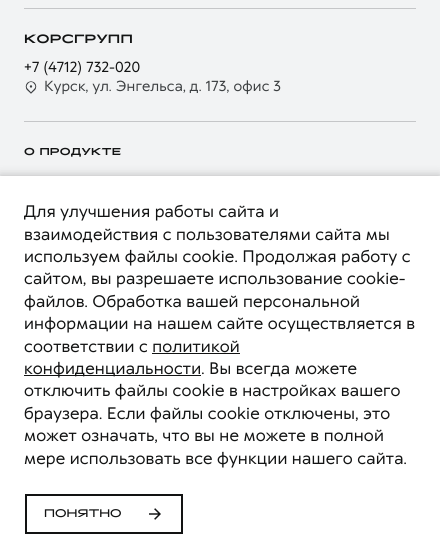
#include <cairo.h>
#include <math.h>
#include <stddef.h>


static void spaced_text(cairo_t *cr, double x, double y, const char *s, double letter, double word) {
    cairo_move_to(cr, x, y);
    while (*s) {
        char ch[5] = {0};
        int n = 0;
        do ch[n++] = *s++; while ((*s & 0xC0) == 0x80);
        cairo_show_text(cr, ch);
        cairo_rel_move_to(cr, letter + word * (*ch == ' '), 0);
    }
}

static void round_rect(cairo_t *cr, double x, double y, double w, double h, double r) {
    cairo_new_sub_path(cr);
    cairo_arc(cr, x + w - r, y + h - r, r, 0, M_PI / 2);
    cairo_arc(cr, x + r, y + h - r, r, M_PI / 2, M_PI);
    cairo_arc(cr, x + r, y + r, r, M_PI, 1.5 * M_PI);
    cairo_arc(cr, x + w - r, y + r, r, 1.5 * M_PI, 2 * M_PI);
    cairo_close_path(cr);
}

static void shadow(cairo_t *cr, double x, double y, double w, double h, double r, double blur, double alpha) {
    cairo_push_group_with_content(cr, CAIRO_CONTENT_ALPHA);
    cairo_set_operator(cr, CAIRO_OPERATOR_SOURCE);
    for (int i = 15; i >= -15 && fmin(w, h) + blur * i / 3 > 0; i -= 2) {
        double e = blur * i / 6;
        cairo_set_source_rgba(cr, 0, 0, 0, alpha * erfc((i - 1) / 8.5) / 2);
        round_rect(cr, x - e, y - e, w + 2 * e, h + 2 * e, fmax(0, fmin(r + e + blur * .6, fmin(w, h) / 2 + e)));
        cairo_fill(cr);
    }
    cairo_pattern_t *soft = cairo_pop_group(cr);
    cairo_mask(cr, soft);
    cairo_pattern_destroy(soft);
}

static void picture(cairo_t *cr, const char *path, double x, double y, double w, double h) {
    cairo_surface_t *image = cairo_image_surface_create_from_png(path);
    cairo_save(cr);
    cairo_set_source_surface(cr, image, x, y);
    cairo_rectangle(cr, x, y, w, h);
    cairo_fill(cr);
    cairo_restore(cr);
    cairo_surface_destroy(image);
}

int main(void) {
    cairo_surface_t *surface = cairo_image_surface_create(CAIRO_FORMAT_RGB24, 440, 559);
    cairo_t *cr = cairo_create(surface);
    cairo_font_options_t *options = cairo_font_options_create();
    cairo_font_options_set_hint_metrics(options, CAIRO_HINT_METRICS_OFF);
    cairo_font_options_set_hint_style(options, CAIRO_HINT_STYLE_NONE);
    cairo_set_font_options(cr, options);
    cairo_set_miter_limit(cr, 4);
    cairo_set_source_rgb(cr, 0.949, 0.953, 0.957);
    cairo_paint(cr);
    cairo_set_source_rgb(cr, 0.773, 0.776, 0.784);
    cairo_rectangle(cr, 24, 8, 392, 1);
    cairo_fill(cr);
    cairo_rectangle(cr, 24, 121, 392, 1);
    cairo_fill(cr);
    cairo_select_font_face(cr, "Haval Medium", CAIRO_FONT_SLANT_NORMAL, CAIRO_FONT_WEIGHT_NORMAL);
    cairo_set_font_size(cr, 12);
    cairo_set_source_rgb(cr, 0.071, 0.075, 0.078);
    spaced_text(cr, 24, 43, "КОРСГРУПП", 0.2, 0);
    cairo_select_font_face(cr, "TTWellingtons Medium", CAIRO_FONT_SLANT_NORMAL, CAIRO_FONT_WEIGHT_NORMAL);
    cairo_set_font_size(cr, 14);
    spaced_text(cr, 24, 72, "+7 (4712) 732-020", 0.2, 0);
    picture(cr, "img1.png", 25, 81, 12, 13);
    cairo_set_source_rgb(cr, 0.239, 0.251, 0.259);
    spaced_text(cr, 44, 91, "Курск, ул. Энгельса, д. 173, офис 3", 0.2, 0);
    cairo_select_font_face(cr, "Haval Medium", CAIRO_FONT_SLANT_NORMAL, CAIRO_FONT_WEIGHT_NORMAL);
    cairo_set_font_size(cr, 10);
    cairo_set_source_rgb(cr, 0.071, 0.075, 0.078);
    spaced_text(cr, 24, 155, "О ПРОДУКТЕ", 0.2, 0);
    cairo_set_source_rgb(cr, 0, 0, 0);
    shadow(cr, 0, 176, 440, 383, 0, 5, 0.25);
    cairo_set_source_rgb(cr, 1, 1, 1);
    cairo_rectangle(cr, 0, 176, 440, 383);
    cairo_fill(cr);
    cairo_select_font_face(cr, "TTWellingtons Medium", CAIRO_FONT_SLANT_NORMAL, CAIRO_FONT_WEIGHT_NORMAL);
    cairo_set_font_size(cr, 16);
    cairo_set_source_rgb(cr, 0.071, 0.075, 0.078);
    spaced_text(cr, 24, 217, "Для улучшения работы сайта и", 0.2, 0);
    spaced_text(cr, 24, 240, "взаимодействия с пользователями сайта мы", 0.2, 0);
    spaced_text(cr, 24, 262, "используем файлы cookie. Продолжая работу с", 0.2, 0);
    spaced_text(cr, 24, 284, "сайтом, вы разрешаете использование cookie-", 0.2, 0);
    spaced_text(cr, 24, 307, "файлов. Обработка вашей персональной", 0.2, 0);
    spaced_text(cr, 24, 329, "информации на нашем сайте осуществляется в", 0.2, 0);
    spaced_text(cr, 24, 352, "соответствии с политикой", 0.2, 0);
    cairo_rectangle(cr, 24, 375, 177, 1);
    cairo_fill(cr);
    spaced_text(cr, 24, 374, "конфиденциальности. Вы всегда можете", 0.2, 0);
    cairo_rectangle(cr, 152, 353, 88, 1);
    cairo_fill(cr);
    spaced_text(cr, 24, 396, "отключить файлы cookie в настройках вашего", 0.2, 0);
    spaced_text(cr, 24, 419, "браузера. Если файлы cookie отключены, это", 0.2, 0);
    spaced_text(cr, 24, 441, "может означать, что вы не можете в полной", 0.2, 0);
    spaced_text(cr, 24, 464, "мере использовать все функции нашего сайта.", 0.2, 0);
    picture(cr, "img2.png", 149, 508, 12, 12);
    cairo_rectangle(cr, 26, 495, 156, 38);
    cairo_stroke(cr);
    cairo_select_font_face(cr, "Haval", CAIRO_FONT_SLANT_NORMAL, CAIRO_FONT_WEIGHT_NORMAL);
    cairo_set_font_size(cr, 11);
    cairo_move_to(cr, 44, 517);
    cairo_show_text(cr, "ПОНЯТНО");
    cairo_surface_write_to_png(surface, "page.png");
    cairo_font_options_destroy(options);
    cairo_destroy(cr);
    cairo_surface_destroy(surface);
    return 0;
}
